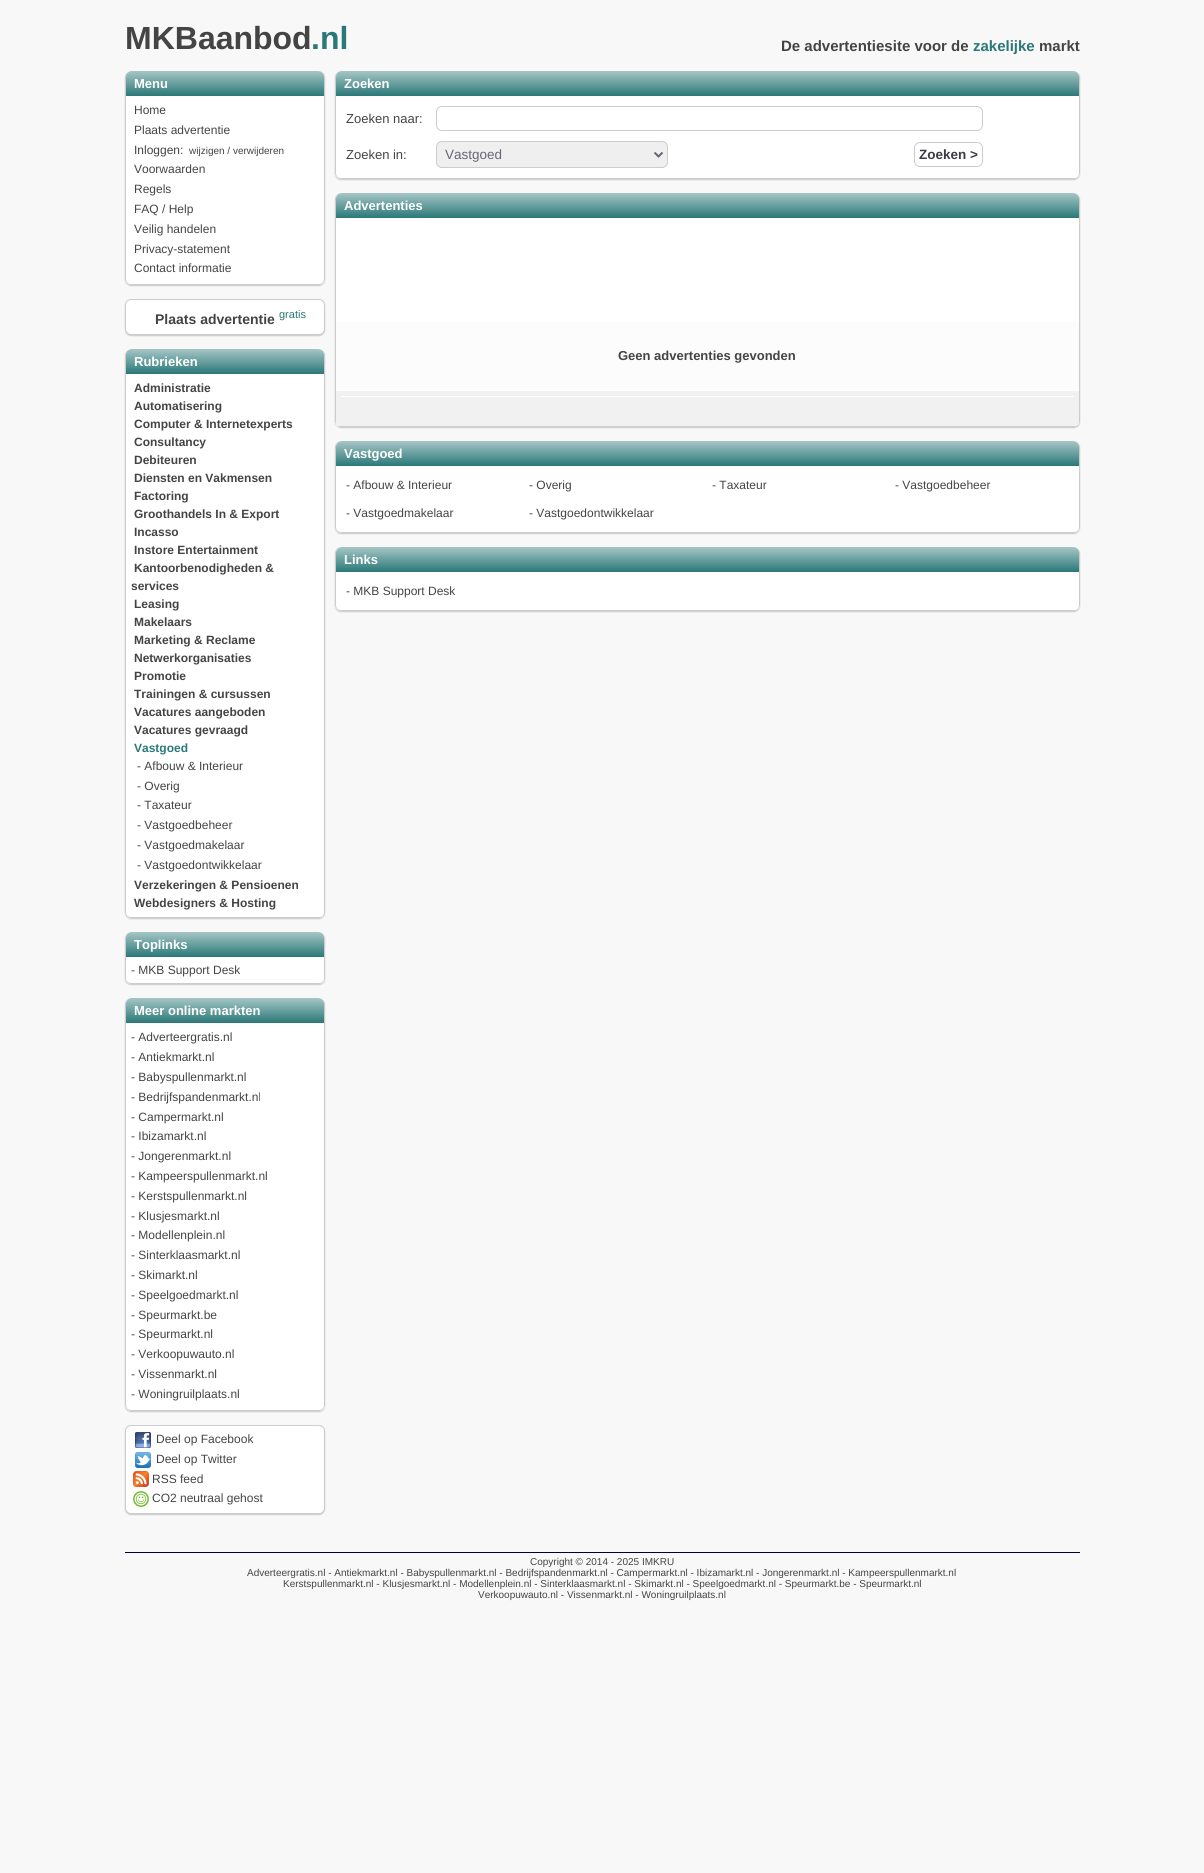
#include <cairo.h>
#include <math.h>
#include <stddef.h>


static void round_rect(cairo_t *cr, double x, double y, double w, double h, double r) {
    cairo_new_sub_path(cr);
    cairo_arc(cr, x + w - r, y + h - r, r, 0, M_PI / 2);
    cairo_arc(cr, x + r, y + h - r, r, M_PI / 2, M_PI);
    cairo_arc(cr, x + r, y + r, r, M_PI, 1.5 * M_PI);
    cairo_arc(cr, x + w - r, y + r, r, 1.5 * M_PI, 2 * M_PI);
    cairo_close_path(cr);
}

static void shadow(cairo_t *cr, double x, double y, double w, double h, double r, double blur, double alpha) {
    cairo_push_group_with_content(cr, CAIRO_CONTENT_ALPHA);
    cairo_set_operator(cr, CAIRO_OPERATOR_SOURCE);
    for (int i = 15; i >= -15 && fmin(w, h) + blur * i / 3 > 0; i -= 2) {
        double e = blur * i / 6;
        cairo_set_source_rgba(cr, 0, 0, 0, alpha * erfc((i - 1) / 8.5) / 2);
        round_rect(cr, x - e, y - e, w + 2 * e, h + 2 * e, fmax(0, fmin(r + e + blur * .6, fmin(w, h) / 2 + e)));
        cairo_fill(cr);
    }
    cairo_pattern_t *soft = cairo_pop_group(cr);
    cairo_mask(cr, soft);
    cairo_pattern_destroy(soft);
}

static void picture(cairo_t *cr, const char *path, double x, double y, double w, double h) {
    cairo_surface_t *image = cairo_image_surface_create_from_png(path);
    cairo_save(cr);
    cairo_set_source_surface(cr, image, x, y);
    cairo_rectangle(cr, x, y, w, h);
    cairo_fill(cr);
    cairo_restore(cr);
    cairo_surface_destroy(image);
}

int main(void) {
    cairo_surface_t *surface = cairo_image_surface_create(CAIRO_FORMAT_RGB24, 1204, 1873);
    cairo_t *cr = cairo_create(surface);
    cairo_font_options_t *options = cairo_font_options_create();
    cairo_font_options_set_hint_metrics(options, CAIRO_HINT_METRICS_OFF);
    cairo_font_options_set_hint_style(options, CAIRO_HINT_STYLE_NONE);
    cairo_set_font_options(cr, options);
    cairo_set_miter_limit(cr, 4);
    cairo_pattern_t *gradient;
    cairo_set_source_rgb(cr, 0.969, 0.969, 0.969);
    cairo_paint(cr);
    cairo_select_font_face(cr, "Liberation Sans", CAIRO_FONT_SLANT_NORMAL, CAIRO_FONT_WEIGHT_BOLD);
    cairo_set_font_size(cr, 32);
    cairo_set_source_rgb(cr, 0.267, 0.267, 0.267);
    cairo_move_to(cr, 125, 49);
    cairo_show_text(cr, "MKBaanbod");
    cairo_set_source_rgb(cr, 0.169, 0.471, 0.471);
    cairo_move_to(cr, 311, 49);
    cairo_show_text(cr, ".nl");
    cairo_set_font_size(cr, 15);
    cairo_set_source_rgb(cr, 0.267, 0.267, 0.267);
    cairo_move_to(cr, 781, 51);
    cairo_show_text(cr, "De advertentiesite voor de");
    cairo_set_source_rgb(cr, 0.169, 0.471, 0.471);
    cairo_move_to(cr, 973, 51);
    cairo_show_text(cr, "zakelijke");
    cairo_set_source_rgb(cr, 0.267, 0.267, 0.267);
    cairo_move_to(cr, 1039, 51);
    cairo_show_text(cr, "markt");
    cairo_set_source_rgb(cr, 0.8, 0.8, 0.8);
    shadow(cr, 125, 72, 200, 214, 6, 0.5, 1);
    cairo_set_source_rgb(cr, 1, 1, 1);
    round_rect(cr, 125, 71, 200, 214, 6);
    cairo_fill(cr);
    cairo_set_source_rgb(cr, 0.8, 0.8, 0.8);
    cairo_set_fill_rule(cr, CAIRO_FILL_RULE_EVEN_ODD);
    cairo_new_path(cr);
    cairo_move_to(cr, 131, 71);
    cairo_line_to(cr, 319, 71);
    cairo_curve_to(cr, 322, 71, 325, 74, 325, 77);
    cairo_line_to(cr, 325, 279);
    cairo_curve_to(cr, 325, 282, 322, 285, 319, 285);
    cairo_line_to(cr, 131, 285);
    cairo_curve_to(cr, 128, 285, 125, 282, 125, 279);
    cairo_line_to(cr, 125, 77);
    cairo_curve_to(cr, 125, 74, 128, 71, 131, 71);
    cairo_close_path(cr);
    cairo_move_to(cr, 131, 71);
    cairo_line_to(cr, 319, 71);
    cairo_curve_to(cr, 322, 71, 324, 74, 324, 77);
    cairo_line_to(cr, 324, 279);
    cairo_curve_to(cr, 324, 282, 322, 284, 319, 284);
    cairo_line_to(cr, 131, 284);
    cairo_curve_to(cr, 128, 284, 126, 282, 126, 279);
    cairo_line_to(cr, 126, 77);
    cairo_curve_to(cr, 126, 74, 128, 71, 131, 71);
    cairo_close_path(cr);
    cairo_fill(cr);
    gradient = cairo_pattern_create_linear(225, 71, 225, 96);
    cairo_pattern_add_color_stop_rgba(gradient, 0, 0.651, 0.776, 0.776, 1);
    cairo_pattern_add_color_stop_rgba(gradient, 1, 0.169, 0.471, 0.471, 1);
    cairo_set_source(cr, gradient);
    cairo_pattern_destroy(gradient);
    cairo_new_path(cr);
    cairo_move_to(cr, 132, 71);
    cairo_line_to(cr, 318, 71);
    cairo_curve_to(cr, 321.5, 71, 324, 73.5, 324, 77);
    cairo_line_to(cr, 324, 96);
    cairo_line_to(cr, 126, 96);
    cairo_line_to(cr, 126, 77);
    cairo_curve_to(cr, 126, 73.5, 128.5, 71, 132, 71);
    cairo_close_path(cr);
    cairo_fill(cr);
    cairo_set_font_size(cr, 13);
    cairo_set_source_rgb(cr, 1, 1, 1);
    cairo_move_to(cr, 134, 88);
    cairo_show_text(cr, "Menu");
    cairo_select_font_face(cr, "Liberation Sans", CAIRO_FONT_SLANT_NORMAL, CAIRO_FONT_WEIGHT_NORMAL);
    cairo_set_font_size(cr, 12);
    cairo_set_source_rgb(cr, 0.267, 0.267, 0.267);
    cairo_move_to(cr, 134, 114);
    cairo_show_text(cr, "Home");
    cairo_move_to(cr, 134, 134);
    cairo_show_text(cr, "Plaats advertentie");
    cairo_move_to(cr, 134, 154);
    cairo_show_text(cr, "Inloggen:");
    cairo_set_font_size(cr, 10);
    cairo_move_to(cr, 189, 154);
    cairo_show_text(cr, "wijzigen / verwijderen");
    cairo_set_font_size(cr, 12);
    cairo_move_to(cr, 134, 173);
    cairo_show_text(cr, "Voorwaarden");
    cairo_move_to(cr, 134, 193);
    cairo_show_text(cr, "Regels");
    cairo_move_to(cr, 134, 213);
    cairo_show_text(cr, "FAQ / Help");
    cairo_move_to(cr, 134, 233);
    cairo_show_text(cr, "Veilig handelen");
    cairo_move_to(cr, 134, 253);
    cairo_show_text(cr, "Privacy-statement");
    cairo_move_to(cr, 134, 272);
    cairo_show_text(cr, "Contact informatie");
    cairo_set_source_rgb(cr, 0.8, 0.8, 0.8);
    shadow(cr, 125, 300, 200, 36, 6, 0.5, 1);
    cairo_set_source_rgb(cr, 1, 1, 1);
    round_rect(cr, 125.5, 299.5, 199, 35, 5.5);
    cairo_fill_preserve(cr);
    cairo_set_source_rgb(cr, 0.8, 0.8, 0.8);
    cairo_set_line_width(cr, 1);
    cairo_stroke(cr);
    cairo_select_font_face(cr, "Liberation Sans", CAIRO_FONT_SLANT_NORMAL, CAIRO_FONT_WEIGHT_BOLD);
    cairo_set_font_size(cr, 14);
    cairo_set_source_rgb(cr, 0.267, 0.267, 0.267);
    cairo_move_to(cr, 155, 324);
    cairo_show_text(cr, "Plaats advertentie");
    cairo_select_font_face(cr, "Liberation Sans", CAIRO_FONT_SLANT_NORMAL, CAIRO_FONT_WEIGHT_NORMAL);
    cairo_set_font_size(cr, 11);
    cairo_set_source_rgb(cr, 0.169, 0.471, 0.471);
    cairo_move_to(cr, 279, 318);
    cairo_show_text(cr, "gratis");
    cairo_set_source_rgb(cr, 0.8, 0.8, 0.8);
    shadow(cr, 125, 350, 200, 569, 6, 0.5, 1);
    cairo_set_source_rgb(cr, 1, 1, 1);
    round_rect(cr, 125, 349, 200, 569, 6);
    cairo_fill(cr);
    cairo_set_source_rgb(cr, 0.8, 0.8, 0.8);
    cairo_new_path(cr);
    cairo_move_to(cr, 131, 349);
    cairo_line_to(cr, 319, 349);
    cairo_curve_to(cr, 322, 349, 325, 352, 325, 355);
    cairo_line_to(cr, 325, 912);
    cairo_curve_to(cr, 325, 915, 322, 918, 319, 918);
    cairo_line_to(cr, 131, 918);
    cairo_curve_to(cr, 128, 918, 125, 915, 125, 912);
    cairo_line_to(cr, 125, 355);
    cairo_curve_to(cr, 125, 352, 128, 349, 131, 349);
    cairo_close_path(cr);
    cairo_move_to(cr, 131, 349);
    cairo_line_to(cr, 319, 349);
    cairo_curve_to(cr, 322, 349, 324, 352, 324, 355);
    cairo_line_to(cr, 324, 912);
    cairo_curve_to(cr, 324, 915, 322, 917, 319, 917);
    cairo_line_to(cr, 131, 917);
    cairo_curve_to(cr, 128, 917, 126, 915, 126, 912);
    cairo_line_to(cr, 126, 355);
    cairo_curve_to(cr, 126, 352, 128, 349, 131, 349);
    cairo_close_path(cr);
    cairo_fill(cr);
    gradient = cairo_pattern_create_linear(225, 349, 225, 374);
    cairo_pattern_add_color_stop_rgba(gradient, 0, 0.651, 0.776, 0.776, 1);
    cairo_pattern_add_color_stop_rgba(gradient, 1, 0.169, 0.471, 0.471, 1);
    cairo_set_source(cr, gradient);
    cairo_pattern_destroy(gradient);
    cairo_new_path(cr);
    cairo_move_to(cr, 132, 349);
    cairo_line_to(cr, 318, 349);
    cairo_curve_to(cr, 321.5, 349, 324, 351.5, 324, 355);
    cairo_line_to(cr, 324, 374);
    cairo_line_to(cr, 126, 374);
    cairo_line_to(cr, 126, 355);
    cairo_curve_to(cr, 126, 351.5, 128.5, 349, 132, 349);
    cairo_close_path(cr);
    cairo_fill(cr);
    cairo_select_font_face(cr, "Liberation Sans", CAIRO_FONT_SLANT_NORMAL, CAIRO_FONT_WEIGHT_BOLD);
    cairo_set_font_size(cr, 13);
    cairo_set_source_rgb(cr, 1, 1, 1);
    cairo_move_to(cr, 134, 366);
    cairo_show_text(cr, "Rubrieken");
    cairo_set_font_size(cr, 12);
    cairo_set_source_rgb(cr, 0.267, 0.267, 0.267);
    cairo_move_to(cr, 134, 392);
    cairo_show_text(cr, "Administratie");
    cairo_move_to(cr, 134, 410);
    cairo_show_text(cr, "Automatisering");
    cairo_move_to(cr, 134, 428);
    cairo_show_text(cr, "Computer & Internetexperts");
    cairo_move_to(cr, 134, 446);
    cairo_show_text(cr, "Consultancy");
    cairo_move_to(cr, 134, 464);
    cairo_show_text(cr, "Debiteuren");
    cairo_move_to(cr, 134, 482);
    cairo_show_text(cr, "Diensten en Vakmensen");
    cairo_move_to(cr, 134, 500);
    cairo_show_text(cr, "Factoring");
    cairo_move_to(cr, 134, 518);
    cairo_show_text(cr, "Groothandels In & Export");
    cairo_move_to(cr, 134, 536);
    cairo_show_text(cr, "Incasso");
    cairo_move_to(cr, 134, 554);
    cairo_show_text(cr, "Instore Entertainment");
    cairo_move_to(cr, 134, 572);
    cairo_show_text(cr, "Kantoorbenodigheden &");
    cairo_move_to(cr, 131, 590);
    cairo_show_text(cr, "services");
    cairo_move_to(cr, 134, 608);
    cairo_show_text(cr, "Leasing");
    cairo_move_to(cr, 134, 626);
    cairo_show_text(cr, "Makelaars");
    cairo_move_to(cr, 134, 644);
    cairo_show_text(cr, "Marketing & Reclame");
    cairo_move_to(cr, 134, 662);
    cairo_show_text(cr, "Netwerkorganisaties");
    cairo_move_to(cr, 134, 680);
    cairo_show_text(cr, "Promotie");
    cairo_move_to(cr, 134, 698);
    cairo_show_text(cr, "Trainingen & cursussen");
    cairo_move_to(cr, 134, 716);
    cairo_show_text(cr, "Vacatures aangeboden");
    cairo_move_to(cr, 134, 734);
    cairo_show_text(cr, "Vacatures gevraagd");
    cairo_set_source_rgb(cr, 0.169, 0.471, 0.471);
    cairo_move_to(cr, 134, 752);
    cairo_show_text(cr, "Vastgoed");
    cairo_select_font_face(cr, "Liberation Sans", CAIRO_FONT_SLANT_NORMAL, CAIRO_FONT_WEIGHT_NORMAL);
    cairo_set_source_rgb(cr, 0.267, 0.267, 0.267);
    cairo_move_to(cr, 137, 770);
    cairo_show_text(cr, "- Afbouw & Interieur");
    cairo_move_to(cr, 137, 790);
    cairo_show_text(cr, "- Overig");
    cairo_move_to(cr, 137, 809);
    cairo_show_text(cr, "- Taxateur");
    cairo_move_to(cr, 137, 829);
    cairo_show_text(cr, "- Vastgoedbeheer");
    cairo_move_to(cr, 137, 849);
    cairo_show_text(cr, "- Vastgoedmakelaar");
    cairo_move_to(cr, 137, 869);
    cairo_show_text(cr, "- Vastgoedontwikkelaar");
    cairo_select_font_face(cr, "Liberation Sans", CAIRO_FONT_SLANT_NORMAL, CAIRO_FONT_WEIGHT_BOLD);
    cairo_move_to(cr, 134, 889);
    cairo_show_text(cr, "Verzekeringen & Pensioenen");
    cairo_move_to(cr, 134, 907);
    cairo_show_text(cr, "Webdesigners & Hosting");
    cairo_set_source_rgb(cr, 0.8, 0.8, 0.8);
    shadow(cr, 125, 933, 200, 52, 6, 0.5, 1);
    cairo_set_source_rgb(cr, 1, 1, 1);
    round_rect(cr, 125, 932, 200, 52, 6);
    cairo_fill(cr);
    cairo_set_source_rgb(cr, 0.8, 0.8, 0.8);
    cairo_new_path(cr);
    cairo_move_to(cr, 131, 932);
    cairo_line_to(cr, 319, 932);
    cairo_curve_to(cr, 322, 932, 325, 935, 325, 938);
    cairo_line_to(cr, 325, 978);
    cairo_curve_to(cr, 325, 981, 322, 984, 319, 984);
    cairo_line_to(cr, 131, 984);
    cairo_curve_to(cr, 128, 984, 125, 981, 125, 978);
    cairo_line_to(cr, 125, 938);
    cairo_curve_to(cr, 125, 935, 128, 932, 131, 932);
    cairo_close_path(cr);
    cairo_move_to(cr, 131, 932);
    cairo_line_to(cr, 319, 932);
    cairo_curve_to(cr, 322, 932, 324, 935, 324, 938);
    cairo_line_to(cr, 324, 978);
    cairo_curve_to(cr, 324, 981, 322, 983, 319, 983);
    cairo_line_to(cr, 131, 983);
    cairo_curve_to(cr, 128, 983, 126, 981, 126, 978);
    cairo_line_to(cr, 126, 938);
    cairo_curve_to(cr, 126, 935, 128, 932, 131, 932);
    cairo_close_path(cr);
    cairo_fill(cr);
    gradient = cairo_pattern_create_linear(225, 932, 225, 957);
    cairo_pattern_add_color_stop_rgba(gradient, 0, 0.651, 0.776, 0.776, 1);
    cairo_pattern_add_color_stop_rgba(gradient, 1, 0.169, 0.471, 0.471, 1);
    cairo_set_source(cr, gradient);
    cairo_pattern_destroy(gradient);
    cairo_new_path(cr);
    cairo_move_to(cr, 132, 932);
    cairo_line_to(cr, 318, 932);
    cairo_curve_to(cr, 321.5, 932, 324, 934.5, 324, 938);
    cairo_line_to(cr, 324, 957);
    cairo_line_to(cr, 126, 957);
    cairo_line_to(cr, 126, 938);
    cairo_curve_to(cr, 126, 934.5, 128.5, 932, 132, 932);
    cairo_close_path(cr);
    cairo_fill(cr);
    cairo_set_font_size(cr, 13);
    cairo_set_source_rgb(cr, 1, 1, 1);
    cairo_move_to(cr, 134, 949);
    cairo_show_text(cr, "Toplinks");
    cairo_select_font_face(cr, "Liberation Sans", CAIRO_FONT_SLANT_NORMAL, CAIRO_FONT_WEIGHT_NORMAL);
    cairo_set_font_size(cr, 12);
    cairo_set_source_rgb(cr, 0.267, 0.267, 0.267);
    cairo_move_to(cr, 131, 974);
    cairo_show_text(cr, "- MKB Support Desk");
    cairo_set_source_rgb(cr, 0.8, 0.8, 0.8);
    shadow(cr, 125, 999, 200, 413, 6, 0.5, 1);
    cairo_set_source_rgb(cr, 1, 1, 1);
    round_rect(cr, 125, 998, 200, 413, 6);
    cairo_fill(cr);
    cairo_set_source_rgb(cr, 0.8, 0.8, 0.8);
    cairo_new_path(cr);
    cairo_move_to(cr, 131, 998);
    cairo_line_to(cr, 319, 998);
    cairo_curve_to(cr, 322, 998, 325, 1001, 325, 1004);
    cairo_line_to(cr, 325, 1405);
    cairo_curve_to(cr, 325, 1408, 322, 1411, 319, 1411);
    cairo_line_to(cr, 131, 1411);
    cairo_curve_to(cr, 128, 1411, 125, 1408, 125, 1405);
    cairo_line_to(cr, 125, 1004);
    cairo_curve_to(cr, 125, 1001, 128, 998, 131, 998);
    cairo_close_path(cr);
    cairo_move_to(cr, 131, 998);
    cairo_line_to(cr, 319, 998);
    cairo_curve_to(cr, 322, 998, 324, 1001, 324, 1004);
    cairo_line_to(cr, 324, 1405);
    cairo_curve_to(cr, 324, 1408, 322, 1410, 319, 1410);
    cairo_line_to(cr, 131, 1410);
    cairo_curve_to(cr, 128, 1410, 126, 1408, 126, 1405);
    cairo_line_to(cr, 126, 1004);
    cairo_curve_to(cr, 126, 1001, 128, 998, 131, 998);
    cairo_close_path(cr);
    cairo_fill(cr);
    gradient = cairo_pattern_create_linear(225, 998, 225, 1023);
    cairo_pattern_add_color_stop_rgba(gradient, 0, 0.651, 0.776, 0.776, 1);
    cairo_pattern_add_color_stop_rgba(gradient, 1, 0.169, 0.471, 0.471, 1);
    cairo_set_source(cr, gradient);
    cairo_pattern_destroy(gradient);
    cairo_new_path(cr);
    cairo_move_to(cr, 132, 998);
    cairo_line_to(cr, 318, 998);
    cairo_curve_to(cr, 321.5, 998, 324, 1000.5, 324, 1004);
    cairo_line_to(cr, 324, 1023);
    cairo_line_to(cr, 126, 1023);
    cairo_line_to(cr, 126, 1004);
    cairo_curve_to(cr, 126, 1000.5, 128.5, 998, 132, 998);
    cairo_close_path(cr);
    cairo_fill(cr);
    cairo_select_font_face(cr, "Liberation Sans", CAIRO_FONT_SLANT_NORMAL, CAIRO_FONT_WEIGHT_BOLD);
    cairo_set_font_size(cr, 13);
    cairo_set_source_rgb(cr, 1, 1, 1);
    cairo_move_to(cr, 134, 1015);
    cairo_show_text(cr, "Meer online markten");
    cairo_select_font_face(cr, "Liberation Sans", CAIRO_FONT_SLANT_NORMAL, CAIRO_FONT_WEIGHT_NORMAL);
    cairo_set_font_size(cr, 12);
    cairo_set_source_rgb(cr, 0.267, 0.267, 0.267);
    cairo_move_to(cr, 131, 1041);
    cairo_show_text(cr, "- Adverteergratis.nl");
    cairo_move_to(cr, 131, 1061);
    cairo_show_text(cr, "- Antiekmarkt.nl");
    cairo_move_to(cr, 131, 1081);
    cairo_show_text(cr, "- Babyspullenmarkt.nl");
    cairo_move_to(cr, 131, 1101);
    cairo_show_text(cr, "- Bedrijfspandenmarkt.nl");
    cairo_move_to(cr, 131, 1121);
    cairo_show_text(cr, "- Campermarkt.nl");
    cairo_move_to(cr, 131, 1140);
    cairo_show_text(cr, "- Ibizamarkt.nl");
    cairo_move_to(cr, 131, 1160);
    cairo_show_text(cr, "- Jongerenmarkt.nl");
    cairo_move_to(cr, 131, 1180);
    cairo_show_text(cr, "- Kampeerspullenmarkt.nl");
    cairo_move_to(cr, 131, 1200);
    cairo_show_text(cr, "- Kerstspullenmarkt.nl");
    cairo_move_to(cr, 131, 1220);
    cairo_show_text(cr, "- Klusjesmarkt.nl");
    cairo_move_to(cr, 131, 1239);
    cairo_show_text(cr, "- Modellenplein.nl");
    cairo_move_to(cr, 131, 1259);
    cairo_show_text(cr, "- Sinterklaasmarkt.nl");
    cairo_move_to(cr, 131, 1279);
    cairo_show_text(cr, "- Skimarkt.nl");
    cairo_move_to(cr, 131, 1299);
    cairo_show_text(cr, "- Speelgoedmarkt.nl");
    cairo_move_to(cr, 131, 1319);
    cairo_show_text(cr, "- Speurmarkt.be");
    cairo_move_to(cr, 131, 1338);
    cairo_show_text(cr, "- Speurmarkt.nl");
    cairo_move_to(cr, 131, 1358);
    cairo_show_text(cr, "- Verkoopuwauto.nl");
    cairo_move_to(cr, 131, 1378);
    cairo_show_text(cr, "- Vissenmarkt.nl");
    cairo_move_to(cr, 131, 1398);
    cairo_show_text(cr, "- Woningruilplaats.nl");
    cairo_set_source_rgb(cr, 0.8, 0.8, 0.8);
    shadow(cr, 125, 1426, 200, 89, 6, 0.5, 1);
    cairo_set_source_rgb(cr, 1, 1, 1);
    round_rect(cr, 125.5, 1425.5, 199, 88, 5.5);
    cairo_fill_preserve(cr);
    cairo_set_source_rgb(cr, 0.8, 0.8, 0.8);
    cairo_stroke(cr);
    picture(cr, "img1.png", 135, 1432, 16, 16);
    cairo_set_source_rgb(cr, 0.267, 0.267, 0.267);
    cairo_move_to(cr, 156, 1443);
    cairo_show_text(cr, "Deel op Facebook");
    picture(cr, "img2.png", 135, 1452, 16, 16);
    cairo_move_to(cr, 156, 1463);
    cairo_show_text(cr, "Deel op Twitter");
    picture(cr, "img3.png", 133, 1471, 16, 16);
    cairo_move_to(cr, 152, 1483);
    cairo_show_text(cr, "RSS feed");
    picture(cr, "img4.png", 133, 1491, 16, 16);
    cairo_move_to(cr, 152, 1502);
    cairo_show_text(cr, "CO2 neutraal gehost");
    cairo_set_source_rgb(cr, 0.8, 0.8, 0.8);
    shadow(cr, 335, 72, 745, 108, 6, 0.5, 1);
    cairo_set_source_rgb(cr, 1, 1, 1);
    round_rect(cr, 335, 71, 745, 108, 6);
    cairo_fill(cr);
    cairo_set_source_rgb(cr, 0.8, 0.8, 0.8);
    cairo_new_path(cr);
    cairo_move_to(cr, 341, 71);
    cairo_line_to(cr, 1074, 71);
    cairo_curve_to(cr, 1077, 71, 1080, 74, 1080, 77);
    cairo_line_to(cr, 1080, 173);
    cairo_curve_to(cr, 1080, 176, 1077, 179, 1074, 179);
    cairo_line_to(cr, 341, 179);
    cairo_curve_to(cr, 338, 179, 335, 176, 335, 173);
    cairo_line_to(cr, 335, 77);
    cairo_curve_to(cr, 335, 74, 338, 71, 341, 71);
    cairo_close_path(cr);
    cairo_move_to(cr, 341, 71);
    cairo_line_to(cr, 1074, 71);
    cairo_curve_to(cr, 1077, 71, 1079, 74, 1079, 77);
    cairo_line_to(cr, 1079, 173);
    cairo_curve_to(cr, 1079, 176, 1077, 178, 1074, 178);
    cairo_line_to(cr, 341, 178);
    cairo_curve_to(cr, 338, 178, 336, 176, 336, 173);
    cairo_line_to(cr, 336, 77);
    cairo_curve_to(cr, 336, 74, 338, 71, 341, 71);
    cairo_close_path(cr);
    cairo_fill(cr);
    gradient = cairo_pattern_create_linear(708, 71, 708, 96);
    cairo_pattern_add_color_stop_rgba(gradient, 0, 0.651, 0.776, 0.776, 1);
    cairo_pattern_add_color_stop_rgba(gradient, 1, 0.169, 0.471, 0.471, 1);
    cairo_set_source(cr, gradient);
    cairo_pattern_destroy(gradient);
    cairo_new_path(cr);
    cairo_move_to(cr, 342, 71);
    cairo_line_to(cr, 1073, 71);
    cairo_curve_to(cr, 1076.5, 71, 1079, 73.5, 1079, 77);
    cairo_line_to(cr, 1079, 96);
    cairo_line_to(cr, 336, 96);
    cairo_line_to(cr, 336, 77);
    cairo_curve_to(cr, 336, 73.5, 338.5, 71, 342, 71);
    cairo_close_path(cr);
    cairo_fill(cr);
    cairo_select_font_face(cr, "Liberation Sans", CAIRO_FONT_SLANT_NORMAL, CAIRO_FONT_WEIGHT_BOLD);
    cairo_set_font_size(cr, 13);
    cairo_set_source_rgb(cr, 1, 1, 1);
    cairo_move_to(cr, 344, 88);
    cairo_show_text(cr, "Zoeken");
    cairo_select_font_face(cr, "Liberation Sans", CAIRO_FONT_SLANT_NORMAL, CAIRO_FONT_WEIGHT_NORMAL);
    cairo_set_source_rgb(cr, 0.267, 0.267, 0.267);
    cairo_move_to(cr, 346, 123);
    cairo_show_text(cr, "Zoeken naar:");
    round_rect(cr, 436.5, 106.5, 546, 24, 5.5);
    cairo_set_source_rgb(cr, 0.8, 0.8, 0.8);
    cairo_stroke(cr);
    cairo_set_source_rgb(cr, 0.267, 0.267, 0.267);
    cairo_move_to(cr, 346, 159);
    cairo_show_text(cr, "Zoeken in:");
    cairo_set_source_rgb(cr, 0.937, 0.937, 0.937);
    round_rect(cr, 436.5, 141.5, 231, 26, 5.5);
    cairo_fill_preserve(cr);
    cairo_set_source_rgb(cr, 0.8, 0.8, 0.8);
    cairo_stroke(cr);
    cairo_new_path(cr);
    cairo_move_to(cr, 654.5, 152.5);
    cairo_line_to(cr, 658.5, 156.5);
    cairo_line_to(cr, 662.5, 152.5);
    cairo_set_source_rgb(cr, 0.4, 0.4, 0.467);
    cairo_set_line_width(cr, 2);
    cairo_stroke(cr);
    cairo_set_font_size(cr, 13.5);
    cairo_move_to(cr, 445, 159);
    cairo_show_text(cr, "Vastgoed");
    round_rect(cr, 914.5, 142.5, 68, 24, 5.5);
    cairo_set_source_rgb(cr, 0.8, 0.8, 0.8);
    cairo_set_line_width(cr, 1);
    cairo_stroke(cr);
    cairo_select_font_face(cr, "Liberation Sans", CAIRO_FONT_SLANT_NORMAL, CAIRO_FONT_WEIGHT_BOLD);
    cairo_set_source_rgb(cr, 0.235, 0.235, 0.275);
    cairo_move_to(cr, 919, 159);
    cairo_show_text(cr, "Zoeken >");
    cairo_set_source_rgb(cr, 0.8, 0.8, 0.8);
    shadow(cr, 335, 194, 745, 234, 6, 0.5, 1);
    cairo_set_source_rgb(cr, 1, 1, 1);
    round_rect(cr, 335, 193, 745, 234, 6);
    cairo_fill(cr);
    cairo_set_source_rgb(cr, 0.8, 0.8, 0.8);
    cairo_new_path(cr);
    cairo_move_to(cr, 341, 193);
    cairo_line_to(cr, 1074, 193);
    cairo_curve_to(cr, 1077, 193, 1080, 196, 1080, 199);
    cairo_line_to(cr, 1080, 421);
    cairo_curve_to(cr, 1080, 424, 1077, 427, 1074, 427);
    cairo_line_to(cr, 341, 427);
    cairo_curve_to(cr, 338, 427, 335, 424, 335, 421);
    cairo_line_to(cr, 335, 199);
    cairo_curve_to(cr, 335, 196, 338, 193, 341, 193);
    cairo_close_path(cr);
    cairo_move_to(cr, 341, 193);
    cairo_line_to(cr, 1074, 193);
    cairo_curve_to(cr, 1077, 193, 1079, 196, 1079, 199);
    cairo_line_to(cr, 1079, 421);
    cairo_curve_to(cr, 1079, 424, 1077, 426, 1074, 426);
    cairo_line_to(cr, 341, 426);
    cairo_curve_to(cr, 338, 426, 336, 424, 336, 421);
    cairo_line_to(cr, 336, 199);
    cairo_curve_to(cr, 336, 196, 338, 193, 341, 193);
    cairo_close_path(cr);
    cairo_fill(cr);
    gradient = cairo_pattern_create_linear(708, 193, 708, 218);
    cairo_pattern_add_color_stop_rgba(gradient, 0, 0.651, 0.776, 0.776, 1);
    cairo_pattern_add_color_stop_rgba(gradient, 1, 0.169, 0.471, 0.471, 1);
    cairo_set_source(cr, gradient);
    cairo_pattern_destroy(gradient);
    cairo_new_path(cr);
    cairo_move_to(cr, 342, 193);
    cairo_line_to(cr, 1073, 193);
    cairo_curve_to(cr, 1076.5, 193, 1079, 195.5, 1079, 199);
    cairo_line_to(cr, 1079, 218);
    cairo_line_to(cr, 336, 218);
    cairo_line_to(cr, 336, 199);
    cairo_curve_to(cr, 336, 195.5, 338.5, 193, 342, 193);
    cairo_close_path(cr);
    cairo_fill(cr);
    cairo_set_font_size(cr, 13);
    cairo_set_source_rgb(cr, 1, 1, 1);
    cairo_move_to(cr, 344, 210);
    cairo_show_text(cr, "Advertenties");
    cairo_set_source_rgb(cr, 0.988, 0.988, 0.988);
    cairo_rectangle(cr, 336, 322, 743, 68);
    cairo_fill(cr);
    cairo_set_source_rgb(cr, 0.267, 0.267, 0.267);
    cairo_move_to(cr, 618, 360);
    cairo_show_text(cr, "Geen advertenties gevonden");
    cairo_set_source_rgb(cr, 0.945, 0.945, 0.945);
    cairo_new_path(cr);
    cairo_move_to(cr, 336, 390);
    cairo_line_to(cr, 1079, 390);
    cairo_line_to(cr, 1079, 420);
    cairo_curve_to(cr, 1079, 423.5, 1076.5, 426, 1073, 426);
    cairo_line_to(cr, 336, 426);
    cairo_close_path(cr);
    cairo_fill(cr);
    cairo_set_source_rgb(cr, 1, 1, 1);
    cairo_rectangle(cr, 336, 390, 743, 1);
    cairo_fill(cr);
    cairo_rectangle(cr, 341, 396, 733, 1);
    cairo_fill(cr);
    cairo_set_source_rgb(cr, 0.8, 0.8, 0.8);
    shadow(cr, 335, 442, 745, 92, 6, 0.5, 1);
    cairo_set_source_rgb(cr, 1, 1, 1);
    round_rect(cr, 335, 441, 745, 92, 6);
    cairo_fill(cr);
    cairo_set_source_rgb(cr, 0.8, 0.8, 0.8);
    cairo_new_path(cr);
    cairo_move_to(cr, 341, 441);
    cairo_line_to(cr, 1074, 441);
    cairo_curve_to(cr, 1077, 441, 1080, 444, 1080, 447);
    cairo_line_to(cr, 1080, 527);
    cairo_curve_to(cr, 1080, 530, 1077, 533, 1074, 533);
    cairo_line_to(cr, 341, 533);
    cairo_curve_to(cr, 338, 533, 335, 530, 335, 527);
    cairo_line_to(cr, 335, 447);
    cairo_curve_to(cr, 335, 444, 338, 441, 341, 441);
    cairo_close_path(cr);
    cairo_move_to(cr, 341, 441);
    cairo_line_to(cr, 1074, 441);
    cairo_curve_to(cr, 1077, 441, 1079, 444, 1079, 447);
    cairo_line_to(cr, 1079, 527);
    cairo_curve_to(cr, 1079, 530, 1077, 532, 1074, 532);
    cairo_line_to(cr, 341, 532);
    cairo_curve_to(cr, 338, 532, 336, 530, 336, 527);
    cairo_line_to(cr, 336, 447);
    cairo_curve_to(cr, 336, 444, 338, 441, 341, 441);
    cairo_close_path(cr);
    cairo_fill(cr);
    gradient = cairo_pattern_create_linear(708, 441, 708, 466);
    cairo_pattern_add_color_stop_rgba(gradient, 0, 0.651, 0.776, 0.776, 1);
    cairo_pattern_add_color_stop_rgba(gradient, 1, 0.169, 0.471, 0.471, 1);
    cairo_set_source(cr, gradient);
    cairo_pattern_destroy(gradient);
    cairo_new_path(cr);
    cairo_move_to(cr, 342, 441);
    cairo_line_to(cr, 1073, 441);
    cairo_curve_to(cr, 1076.5, 441, 1079, 443.5, 1079, 447);
    cairo_line_to(cr, 1079, 466);
    cairo_line_to(cr, 336, 466);
    cairo_line_to(cr, 336, 447);
    cairo_curve_to(cr, 336, 443.5, 338.5, 441, 342, 441);
    cairo_close_path(cr);
    cairo_fill(cr);
    cairo_set_source_rgb(cr, 1, 1, 1);
    cairo_move_to(cr, 344, 458);
    cairo_show_text(cr, "Vastgoed");
    cairo_select_font_face(cr, "Liberation Sans", CAIRO_FONT_SLANT_NORMAL, CAIRO_FONT_WEIGHT_NORMAL);
    cairo_set_font_size(cr, 12);
    cairo_set_source_rgb(cr, 0.267, 0.267, 0.267);
    cairo_move_to(cr, 346, 489);
    cairo_show_text(cr, "- Afbouw & Interieur");
    cairo_move_to(cr, 529, 489);
    cairo_show_text(cr, "- Overig");
    cairo_move_to(cr, 712, 489);
    cairo_show_text(cr, "- Taxateur");
    cairo_move_to(cr, 895, 489);
    cairo_show_text(cr, "- Vastgoedbeheer");
    cairo_move_to(cr, 346, 517);
    cairo_show_text(cr, "- Vastgoedmakelaar");
    cairo_move_to(cr, 529, 517);
    cairo_show_text(cr, "- Vastgoedontwikkelaar");
    cairo_set_source_rgb(cr, 0.8, 0.8, 0.8);
    shadow(cr, 335, 548, 745, 64, 6, 0.5, 1);
    cairo_set_source_rgb(cr, 1, 1, 1);
    round_rect(cr, 335, 547, 745, 64, 6);
    cairo_fill(cr);
    cairo_set_source_rgb(cr, 0.8, 0.8, 0.8);
    cairo_new_path(cr);
    cairo_move_to(cr, 341, 547);
    cairo_line_to(cr, 1074, 547);
    cairo_curve_to(cr, 1077, 547, 1080, 550, 1080, 553);
    cairo_line_to(cr, 1080, 605);
    cairo_curve_to(cr, 1080, 608, 1077, 611, 1074, 611);
    cairo_line_to(cr, 341, 611);
    cairo_curve_to(cr, 338, 611, 335, 608, 335, 605);
    cairo_line_to(cr, 335, 553);
    cairo_curve_to(cr, 335, 550, 338, 547, 341, 547);
    cairo_close_path(cr);
    cairo_move_to(cr, 341, 547);
    cairo_line_to(cr, 1074, 547);
    cairo_curve_to(cr, 1077, 547, 1079, 550, 1079, 553);
    cairo_line_to(cr, 1079, 605);
    cairo_curve_to(cr, 1079, 608, 1077, 610, 1074, 610);
    cairo_line_to(cr, 341, 610);
    cairo_curve_to(cr, 338, 610, 336, 608, 336, 605);
    cairo_line_to(cr, 336, 553);
    cairo_curve_to(cr, 336, 550, 338, 547, 341, 547);
    cairo_close_path(cr);
    cairo_fill(cr);
    gradient = cairo_pattern_create_linear(708, 547, 708, 572);
    cairo_pattern_add_color_stop_rgba(gradient, 0, 0.651, 0.776, 0.776, 1);
    cairo_pattern_add_color_stop_rgba(gradient, 1, 0.169, 0.471, 0.471, 1);
    cairo_set_source(cr, gradient);
    cairo_pattern_destroy(gradient);
    cairo_new_path(cr);
    cairo_move_to(cr, 342, 547);
    cairo_line_to(cr, 1073, 547);
    cairo_curve_to(cr, 1076.5, 547, 1079, 549.5, 1079, 553);
    cairo_line_to(cr, 1079, 572);
    cairo_line_to(cr, 336, 572);
    cairo_line_to(cr, 336, 553);
    cairo_curve_to(cr, 336, 549.5, 338.5, 547, 342, 547);
    cairo_close_path(cr);
    cairo_fill(cr);
    cairo_select_font_face(cr, "Liberation Sans", CAIRO_FONT_SLANT_NORMAL, CAIRO_FONT_WEIGHT_BOLD);
    cairo_set_font_size(cr, 13);
    cairo_set_source_rgb(cr, 1, 1, 1);
    cairo_move_to(cr, 344, 564);
    cairo_show_text(cr, "Links");
    cairo_select_font_face(cr, "Liberation Sans", CAIRO_FONT_SLANT_NORMAL, CAIRO_FONT_WEIGHT_NORMAL);
    cairo_set_font_size(cr, 12);
    cairo_set_source_rgb(cr, 0.267, 0.267, 0.267);
    cairo_move_to(cr, 346, 595);
    cairo_show_text(cr, "- MKB Support Desk");
    cairo_set_source_rgb(cr, 0, 0, 0.2);
    cairo_rectangle(cr, 125, 1552, 955, 1);
    cairo_fill(cr);
    cairo_set_font_size(cr, 10);
    cairo_set_source_rgb(cr, 0.267, 0.267, 0.267);
    cairo_move_to(cr, 530, 1565);
    cairo_show_text(cr, "Copyright © 2014 - 2025 IMKRU");
    cairo_move_to(cr, 247, 1576);
    cairo_show_text(cr, "Adverteergratis.nl - Antiekmarkt.nl - Babyspullenmarkt.nl - Bedrijfspandenmarkt.nl - Campermarkt.nl - Ibizamarkt.nl - Jongerenmarkt.nl - Kampeerspullenmarkt.nl");
    cairo_move_to(cr, 283, 1587);
    cairo_show_text(cr, "Kerstspullenmarkt.nl - Klusjesmarkt.nl - Modellenplein.nl - Sinterklaasmarkt.nl - Skimarkt.nl - Speelgoedmarkt.nl - Speurmarkt.be - Speurmarkt.nl");
    cairo_move_to(cr, 478, 1598);
    cairo_show_text(cr, "Verkoopuwauto.nl - Vissenmarkt.nl - Woningruilplaats.nl");
    cairo_surface_write_to_png(surface, "page.png");
    cairo_font_options_destroy(options);
    cairo_destroy(cr);
    cairo_surface_destroy(surface);
    return 0;
}
